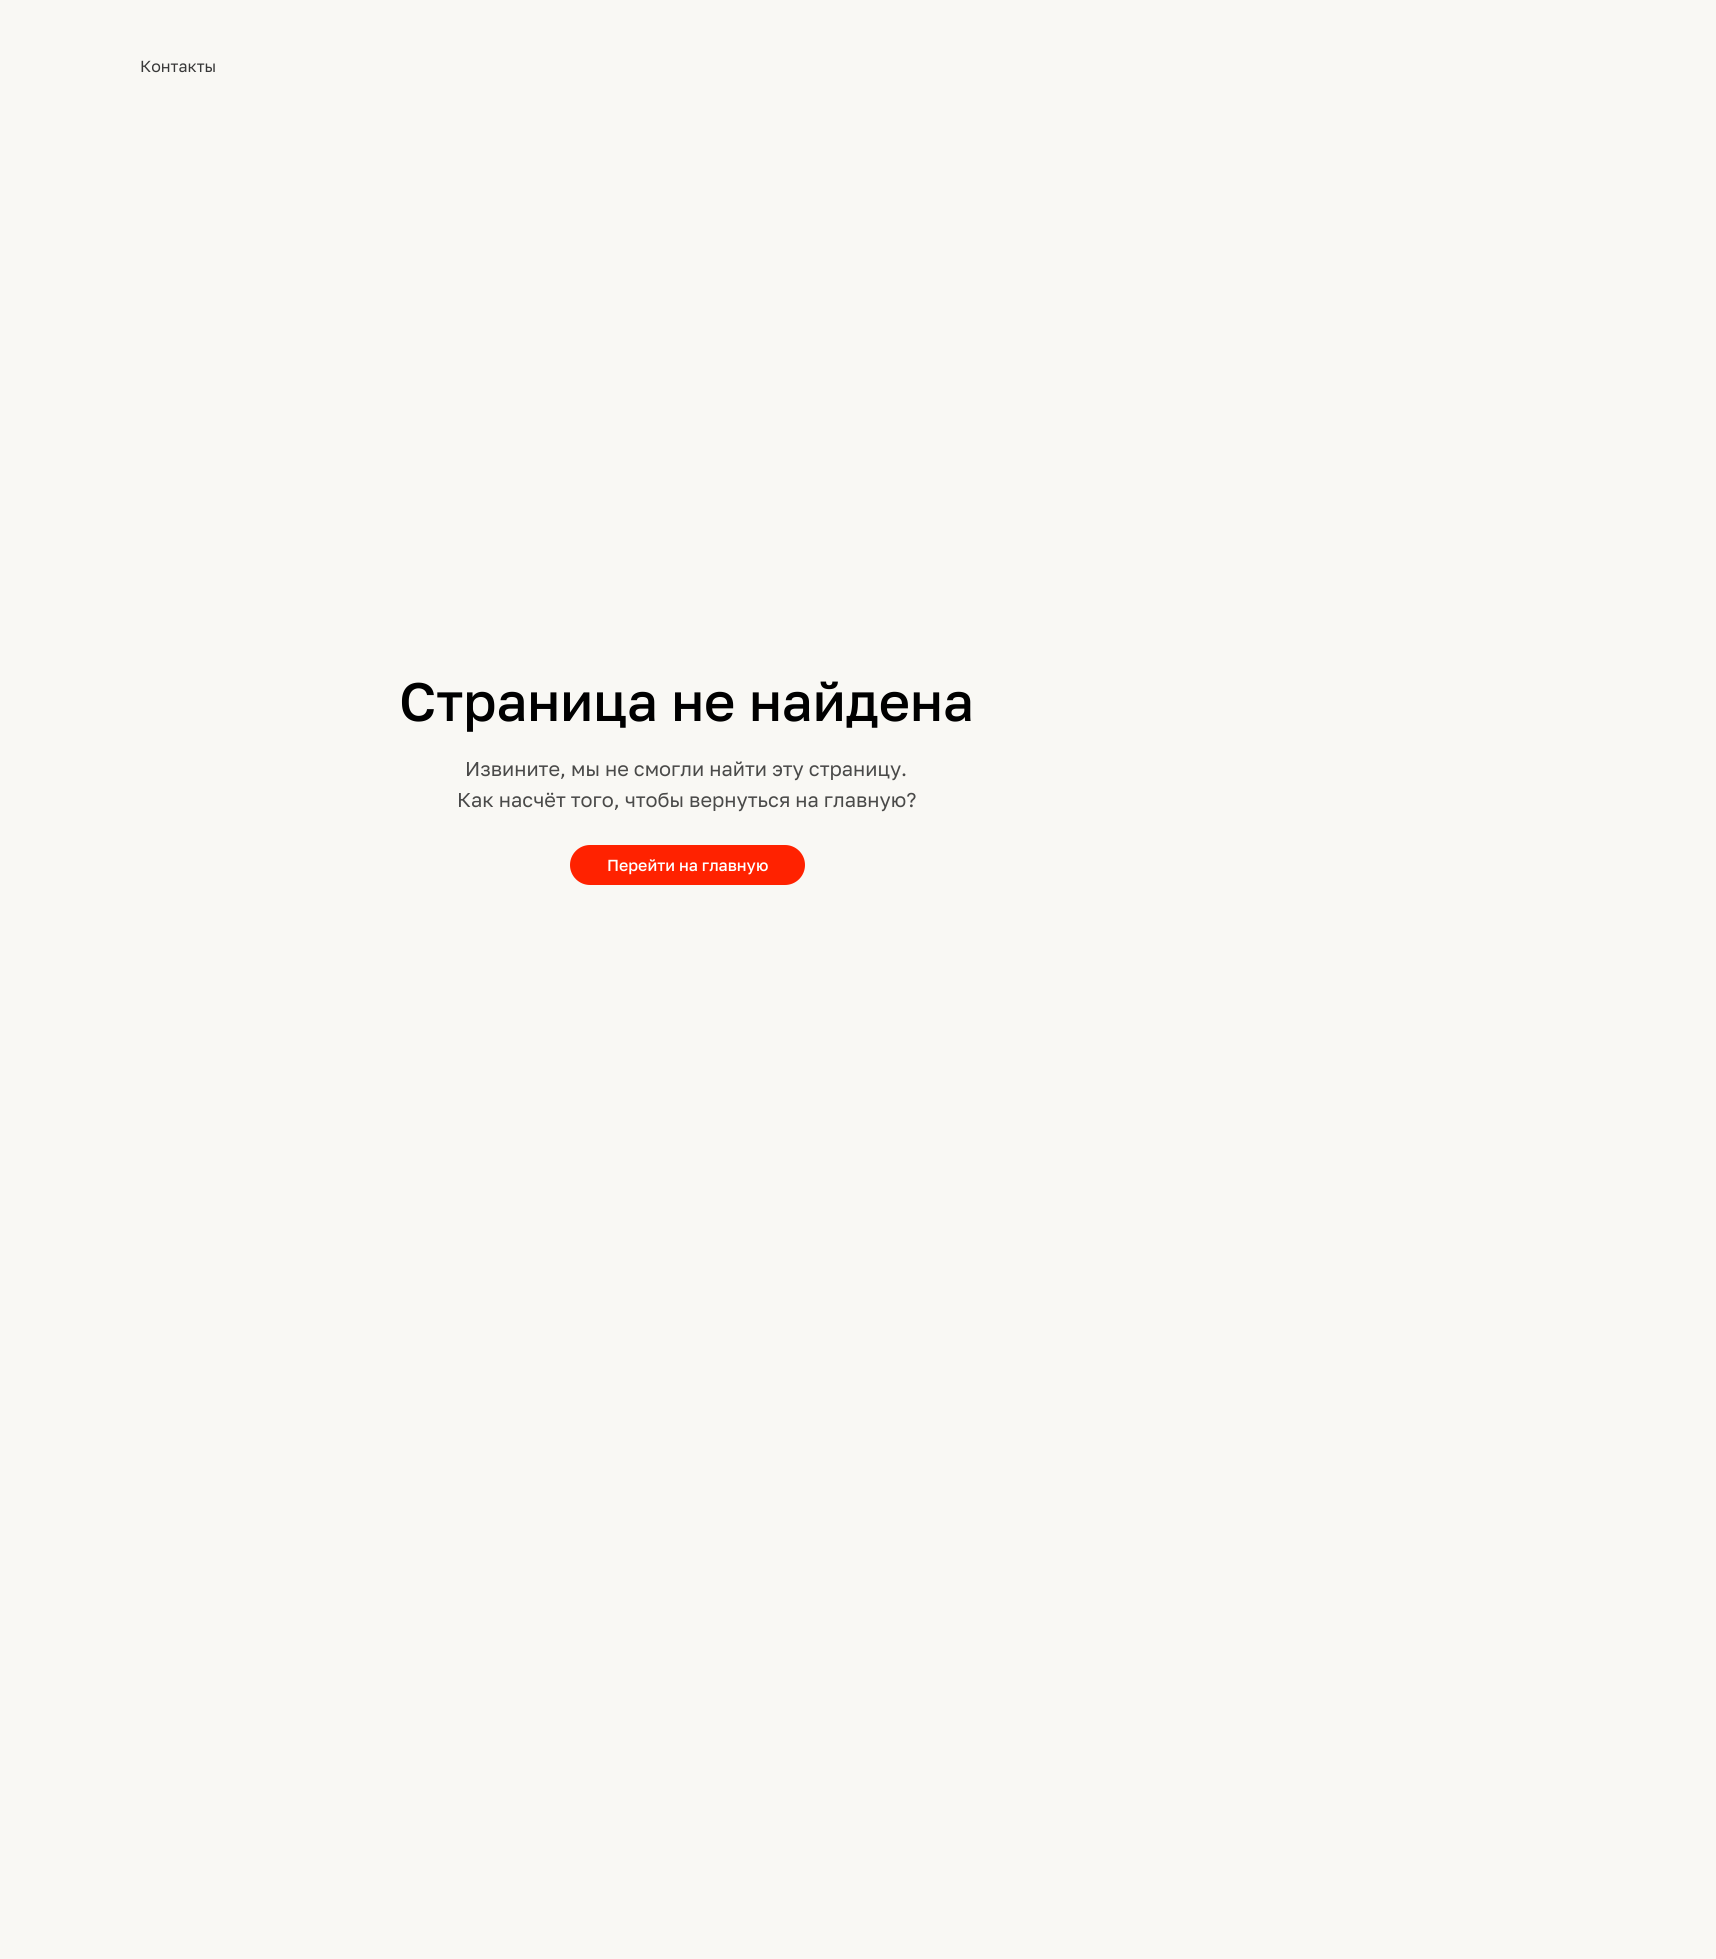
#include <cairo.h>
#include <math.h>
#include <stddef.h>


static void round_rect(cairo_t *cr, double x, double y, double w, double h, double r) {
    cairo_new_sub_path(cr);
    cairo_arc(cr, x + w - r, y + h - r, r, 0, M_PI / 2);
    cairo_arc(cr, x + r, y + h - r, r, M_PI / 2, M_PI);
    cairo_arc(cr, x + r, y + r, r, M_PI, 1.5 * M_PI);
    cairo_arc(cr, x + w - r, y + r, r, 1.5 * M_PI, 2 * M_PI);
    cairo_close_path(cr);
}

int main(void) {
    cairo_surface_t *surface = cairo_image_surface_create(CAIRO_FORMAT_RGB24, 1716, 1959);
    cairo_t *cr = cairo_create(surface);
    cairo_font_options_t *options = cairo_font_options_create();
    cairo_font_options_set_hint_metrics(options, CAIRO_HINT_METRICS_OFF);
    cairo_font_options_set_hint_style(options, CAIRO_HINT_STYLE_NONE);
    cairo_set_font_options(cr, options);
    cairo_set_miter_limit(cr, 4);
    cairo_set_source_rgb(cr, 0.973, 0.969, 0.957);
    cairo_paint(cr);
    cairo_select_font_face(cr, "Golos Text", CAIRO_FONT_SLANT_NORMAL, CAIRO_FONT_WEIGHT_NORMAL);
    cairo_set_font_size(cr, 16);
    cairo_set_source_rgb(cr, 0.22, 0.22, 0.22);
    cairo_move_to(cr, 140, 72);
    cairo_show_text(cr, "Контакты");
    cairo_select_font_face(cr, "Golos Text Medium", CAIRO_FONT_SLANT_NORMAL, CAIRO_FONT_WEIGHT_NORMAL);
    cairo_set_font_size(cr, 54);
    cairo_set_source_rgb(cr, 0, 0, 0);
    cairo_move_to(cr, 399, 721);
    cairo_show_text(cr, "Страница не найдена");
    cairo_select_font_face(cr, "Golos Text", CAIRO_FONT_SLANT_NORMAL, CAIRO_FONT_WEIGHT_NORMAL);
    cairo_set_font_size(cr, 20);
    cairo_set_source_rgb(cr, 0.29, 0.29, 0.286);
    cairo_move_to(cr, 465, 776);
    cairo_show_text(cr, "Извините, мы не смогли найти эту страницу.");
    cairo_move_to(cr, 457, 807);
    cairo_show_text(cr, "Как насчёт того, чтобы вернуться на главную?");
    cairo_set_source_rgb(cr, 1, 0.133, 0);
    round_rect(cr, 570, 845, 235, 40, 20);
    cairo_fill(cr);
    cairo_select_font_face(cr, "Golos Text Medium", CAIRO_FONT_SLANT_NORMAL, CAIRO_FONT_WEIGHT_NORMAL);
    cairo_set_font_size(cr, 16);
    cairo_set_source_rgb(cr, 1, 1, 1);
    cairo_move_to(cr, 607, 871);
    cairo_show_text(cr, "Перейти на главную");
    cairo_surface_write_to_png(surface, "page.png");
    cairo_font_options_destroy(options);
    cairo_destroy(cr);
    cairo_surface_destroy(surface);
    return 0;
}
